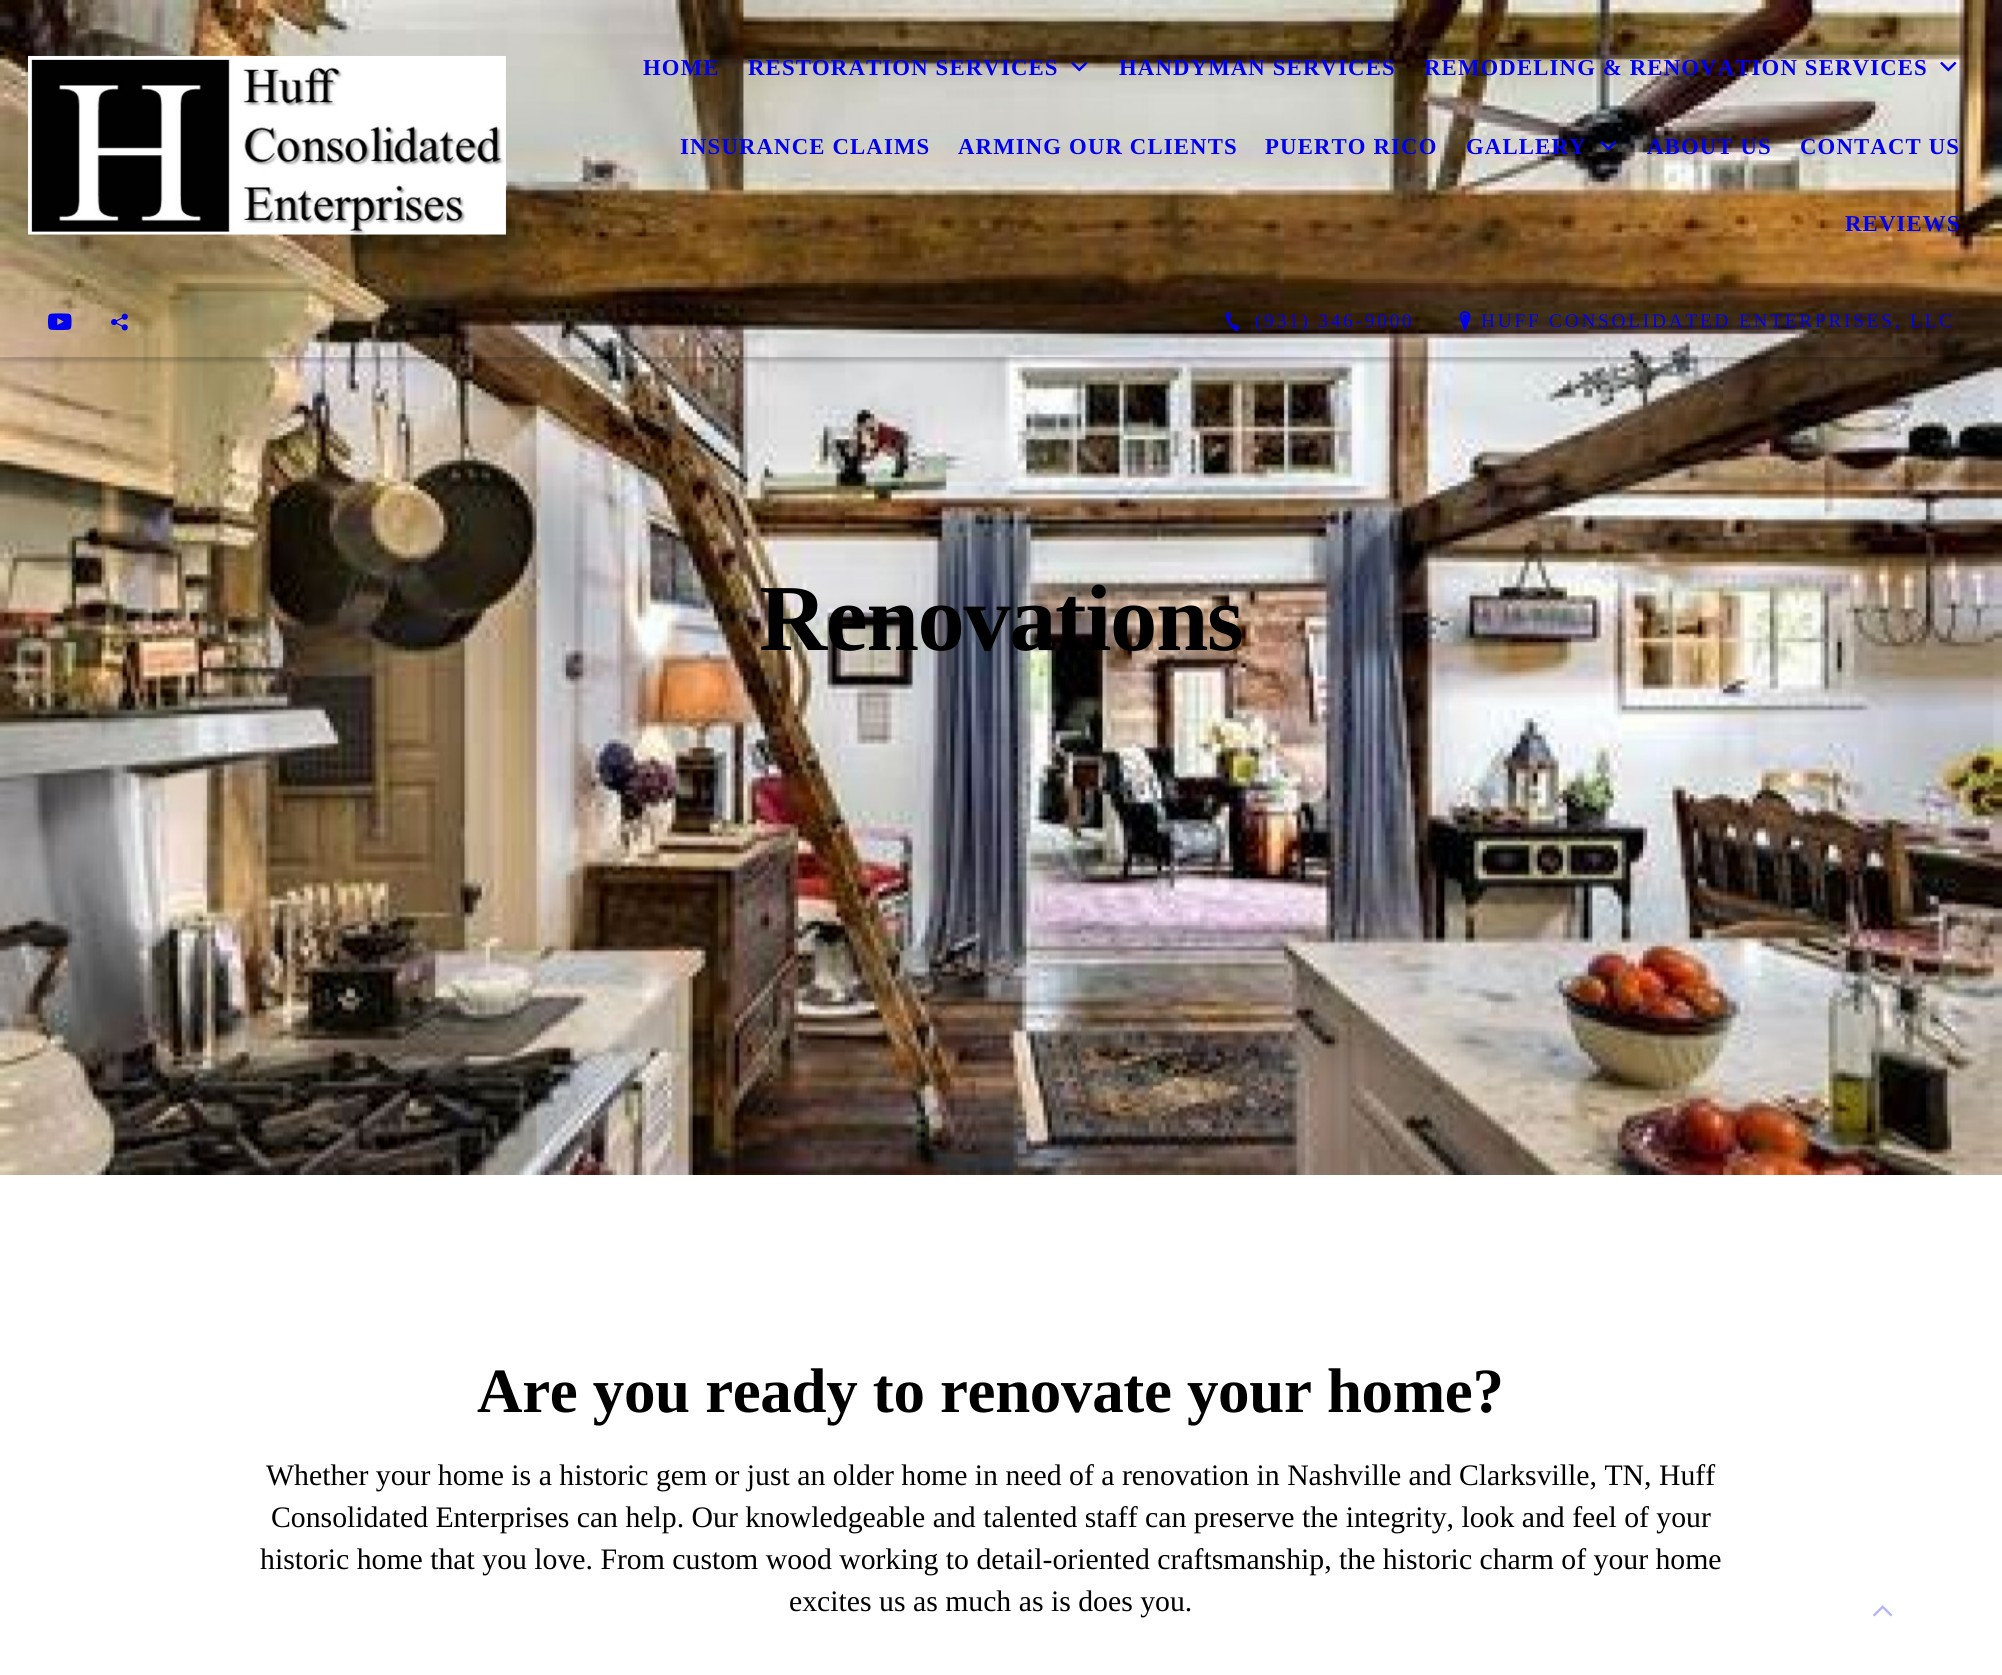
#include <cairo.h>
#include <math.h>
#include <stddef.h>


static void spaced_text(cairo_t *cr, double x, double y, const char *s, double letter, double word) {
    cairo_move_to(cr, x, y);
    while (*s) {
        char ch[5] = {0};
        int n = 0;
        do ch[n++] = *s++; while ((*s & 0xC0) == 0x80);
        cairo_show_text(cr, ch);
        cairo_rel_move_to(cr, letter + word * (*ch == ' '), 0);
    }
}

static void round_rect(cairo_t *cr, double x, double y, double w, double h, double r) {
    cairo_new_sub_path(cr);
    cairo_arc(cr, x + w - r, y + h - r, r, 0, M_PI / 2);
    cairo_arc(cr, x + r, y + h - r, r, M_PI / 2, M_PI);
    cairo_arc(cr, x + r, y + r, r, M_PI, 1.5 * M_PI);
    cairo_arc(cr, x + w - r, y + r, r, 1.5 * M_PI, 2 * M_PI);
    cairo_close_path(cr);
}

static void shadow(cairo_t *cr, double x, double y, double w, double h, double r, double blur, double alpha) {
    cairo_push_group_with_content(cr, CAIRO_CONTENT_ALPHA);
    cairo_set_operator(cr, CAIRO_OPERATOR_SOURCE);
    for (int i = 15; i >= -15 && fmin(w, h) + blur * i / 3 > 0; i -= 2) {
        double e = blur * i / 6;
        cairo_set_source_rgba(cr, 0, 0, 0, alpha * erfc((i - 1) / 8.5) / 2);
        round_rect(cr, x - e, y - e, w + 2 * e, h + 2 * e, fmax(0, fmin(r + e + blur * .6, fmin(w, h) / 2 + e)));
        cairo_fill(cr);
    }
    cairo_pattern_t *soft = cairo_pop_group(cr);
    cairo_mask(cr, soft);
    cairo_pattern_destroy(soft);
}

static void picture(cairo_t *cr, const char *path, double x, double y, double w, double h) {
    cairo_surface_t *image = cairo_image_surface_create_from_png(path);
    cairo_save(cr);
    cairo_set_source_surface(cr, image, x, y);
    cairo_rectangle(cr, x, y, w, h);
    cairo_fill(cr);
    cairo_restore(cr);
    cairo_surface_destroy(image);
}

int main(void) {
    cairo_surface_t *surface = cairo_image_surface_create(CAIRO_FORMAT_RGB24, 2002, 1675);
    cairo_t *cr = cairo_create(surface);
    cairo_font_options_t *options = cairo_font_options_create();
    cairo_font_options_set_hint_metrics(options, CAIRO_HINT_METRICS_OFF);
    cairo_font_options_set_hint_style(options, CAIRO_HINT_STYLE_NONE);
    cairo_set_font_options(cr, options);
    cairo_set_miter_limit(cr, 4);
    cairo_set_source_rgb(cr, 1, 1, 1);
    cairo_paint(cr);
    picture(cr, "img5.png", 0, 0, 2002, 1175);
    picture(cr, "img1.png", 28, 55, 478, 180);
    cairo_select_font_face(cr, "Liberation Serif", CAIRO_FONT_SLANT_NORMAL, CAIRO_FONT_WEIGHT_BOLD);
    cairo_set_font_size(cr, 22.75);
    cairo_set_source_rgb(cr, 0, 0, 0.933);
    spaced_text(cr, 643, 75, "HOME", 1.15, 0);
    spaced_text(cr, 748, 75, "RESTORATION SERVICES", 1.15, 0);
    cairo_select_font_face(cr, "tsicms", CAIRO_FONT_SLANT_NORMAL, CAIRO_FONT_WEIGHT_BOLD);
    cairo_set_font_size(cr, 20);
    spaced_text(cr, 1069, 75, "-", 1.15, 0);
    cairo_select_font_face(cr, "Liberation Serif", CAIRO_FONT_SLANT_NORMAL, CAIRO_FONT_WEIGHT_BOLD);
    cairo_set_font_size(cr, 22.75);
    spaced_text(cr, 1119, 75, "HANDYMAN SERVICES", 1.15, 0);
    spaced_text(cr, 1424, 75, "REMODELING & RENOVATION SERVICES", 1.15, 0);
    cairo_select_font_face(cr, "tsicms", CAIRO_FONT_SLANT_NORMAL, CAIRO_FONT_WEIGHT_BOLD);
    cairo_set_font_size(cr, 20);
    spaced_text(cr, 1938, 75, "-", 1.15, 0);
    cairo_select_font_face(cr, "Liberation Serif", CAIRO_FONT_SLANT_NORMAL, CAIRO_FONT_WEIGHT_BOLD);
    cairo_set_font_size(cr, 22.75);
    spaced_text(cr, 680, 154, "INSURANCE CLAIMS", 1.15, 0);
    spaced_text(cr, 958, 154, "ARMING OUR CLIENTS", 1.15, 0);
    spaced_text(cr, 1265, 154, "PUERTO RICO", 1.15, 0);
    spaced_text(cr, 1466, 154, "GALLERY", 1.15, 0);
    cairo_select_font_face(cr, "tsicms", CAIRO_FONT_SLANT_NORMAL, CAIRO_FONT_WEIGHT_BOLD);
    cairo_set_font_size(cr, 20);
    spaced_text(cr, 1598, 154, "-", 1.15, 0);
    cairo_select_font_face(cr, "Liberation Serif", CAIRO_FONT_SLANT_NORMAL, CAIRO_FONT_WEIGHT_BOLD);
    cairo_set_font_size(cr, 22.75);
    spaced_text(cr, 1647, 154, "ABOUT US", 1.15, 0);
    spaced_text(cr, 1800, 154, "CONTACT US", 1.15, 0);
    spaced_text(cr, 1845, 231, "REVIEWS", 1.15, 0);
    cairo_save(cr);
    cairo_set_fill_rule(cr, CAIRO_FILL_RULE_EVEN_ODD);
    cairo_new_path(cr);
    cairo_move_to(cr, 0, 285);
    cairo_line_to(cr, 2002, 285);
    cairo_line_to(cr, 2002, 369);
    cairo_line_to(cr, 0, 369);
    cairo_close_path(cr);
    cairo_move_to(cr, 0, 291);
    cairo_line_to(cr, 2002, 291);
    cairo_line_to(cr, 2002, 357);
    cairo_line_to(cr, 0, 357);
    cairo_close_path(cr);
    cairo_clip(cr);
    cairo_set_source_rgb(cr, 0, 0, 0);
    shadow(cr, -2, 292, 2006, 70, 0, 2, 0.2);
    cairo_restore(cr);
    picture(cr, "img2.png", 48, 313, 24, 17);
    cairo_select_font_face(cr, "tsicms", CAIRO_FONT_SLANT_NORMAL, CAIRO_FONT_WEIGHT_NORMAL);
    cairo_set_font_size(cr, 25);
    cairo_move_to(cr, 111, 333);
    cairo_show_text(cr, "@");
    picture(cr, "img3.png", 1225, 312, 15, 20);
    cairo_select_font_face(cr, "Liberation Serif", CAIRO_FONT_SLANT_NORMAL, CAIRO_FONT_WEIGHT_NORMAL);
    cairo_set_font_size(cr, 19.25);
    spaced_text(cr, 1255, 327, "(931) 346-9000", 2.8, 0);
    picture(cr, "img4.png", 1459, 311, 12, 20);
    spaced_text(cr, 1481, 327, "HUFF CONSOLIDATED ENTERPRISES, LLC", 2.8, 0);
    cairo_select_font_face(cr, "Liberation Serif", CAIRO_FONT_SLANT_NORMAL, CAIRO_FONT_WEIGHT_BOLD);
    cairo_set_font_size(cr, 94.5);
    cairo_set_source_rgb(cr, 0, 0, 0);
    spaced_text(cr, 759, 650, "Renovations", -1.4, 0);
    cairo_set_font_size(cr, 63);
    spaced_text(cr, 477, 1412, "Are you ready to renovate your home?", -0.35, 0);
    cairo_select_font_face(cr, "Liberation Serif", CAIRO_FONT_SLANT_NORMAL, CAIRO_FONT_WEIGHT_NORMAL);
    cairo_set_font_size(cr, 29.75);
    cairo_move_to(cr, 266, 1485);
    cairo_show_text(cr, "Whether your home is a historic gem or just an older home in need of a renovation in Nashville and Clarksville, TN, Huff");
    cairo_move_to(cr, 271, 1527);
    cairo_show_text(cr, "Consolidated Enterprises can help. Our knowledgeable and talented staff can preserve the integrity, look and feel of your");
    cairo_move_to(cr, 260, 1569);
    cairo_show_text(cr, "historic home that you love. From custom wood working to detail-oriented craftsmanship, the historic charm of your home");
    cairo_move_to(cr, 789, 1611);
    cairo_show_text(cr, "excites us as much as is does you.");
    cairo_select_font_face(cr, "tsicms", CAIRO_FONT_SLANT_NORMAL, CAIRO_FONT_WEIGHT_NORMAL);
    cairo_set_font_size(cr, 25);
    cairo_set_source_rgb(cr, 0.702, 0.702, 0.98);
    cairo_move_to(cr, 1873, 1621);
    cairo_show_text(cr, "+");
    cairo_surface_write_to_png(surface, "page.png");
    cairo_font_options_destroy(options);
    cairo_destroy(cr);
    cairo_surface_destroy(surface);
    return 0;
}
